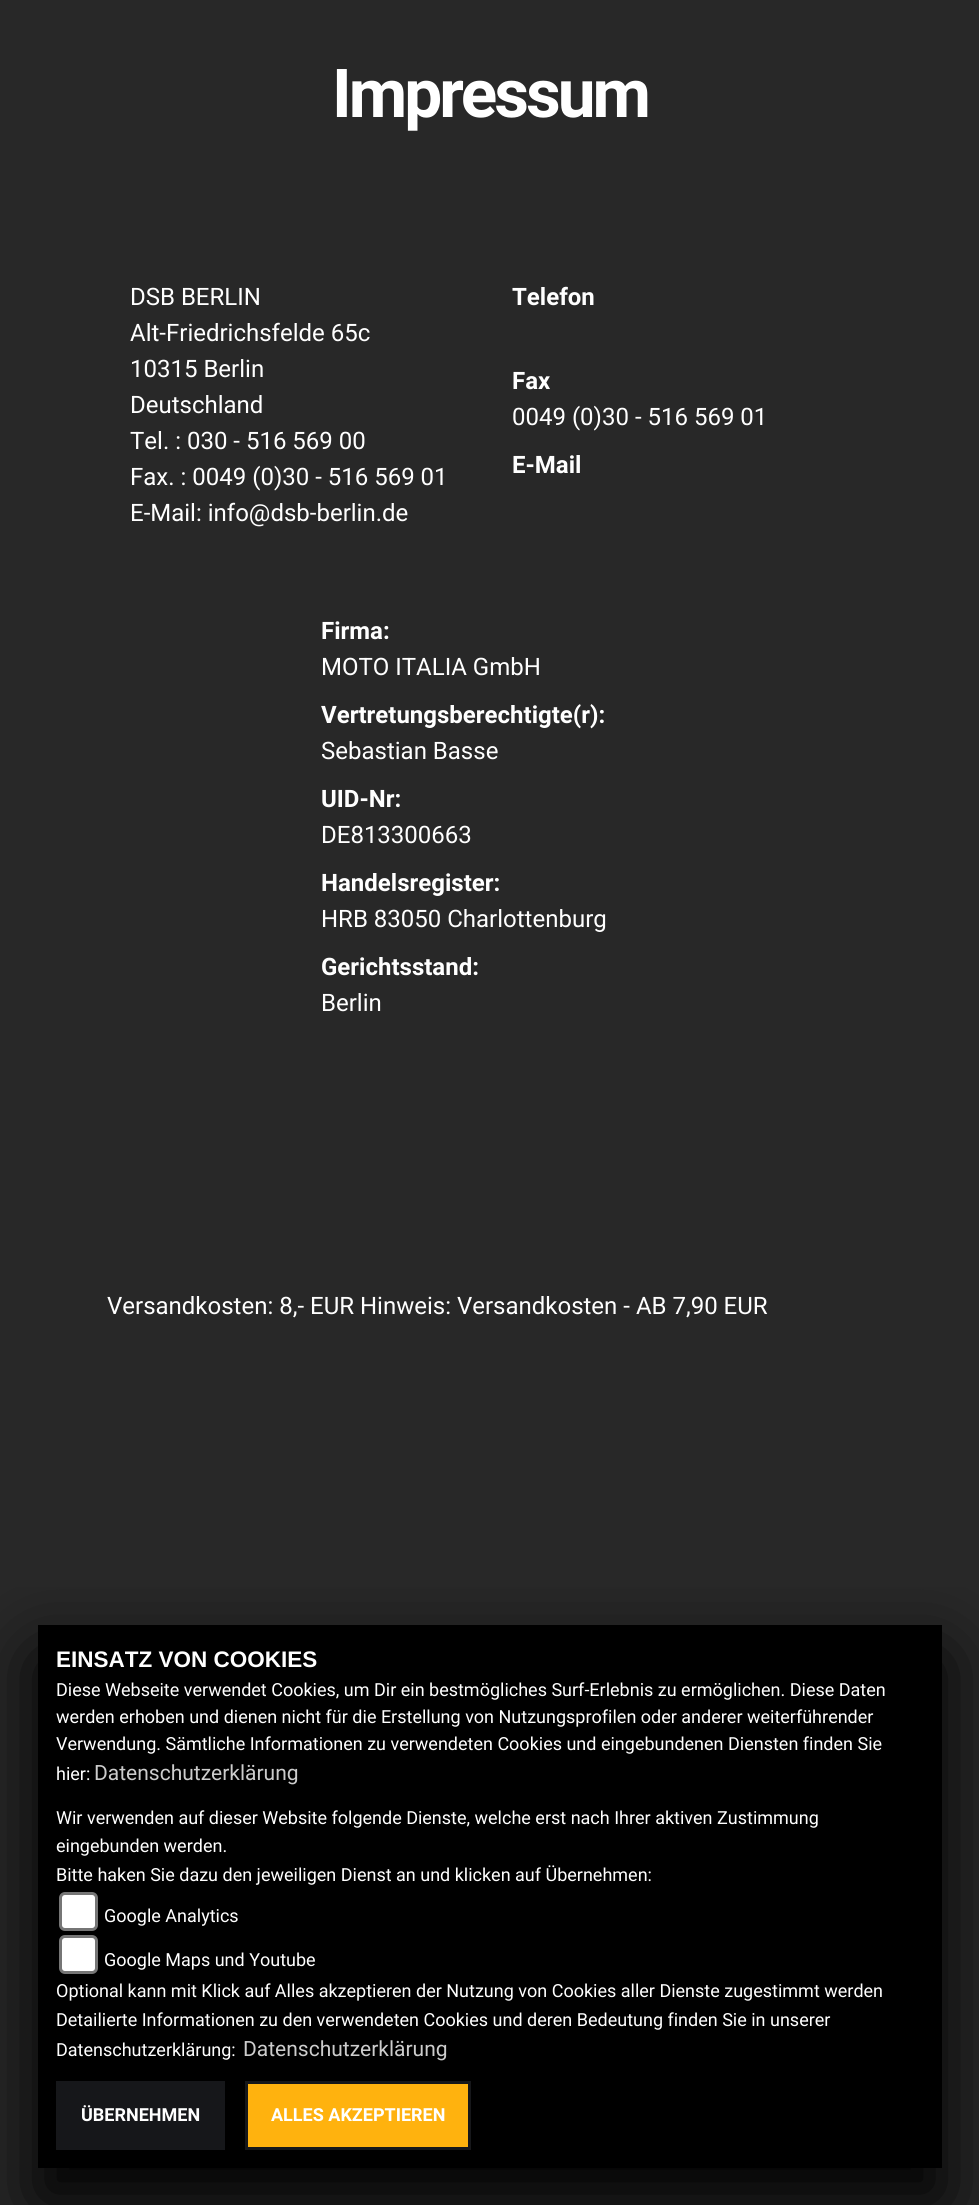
#include <cairo.h>
#include <math.h>
#include <stddef.h>


static void spaced_text(cairo_t *cr, double x, double y, const char *s, double letter, double word) {
    cairo_move_to(cr, x, y);
    while (*s) {
        char ch[5] = {0};
        int n = 0;
        do ch[n++] = *s++; while ((*s & 0xC0) == 0x80);
        cairo_show_text(cr, ch);
        cairo_rel_move_to(cr, letter + word * (*ch == ' '), 0);
    }
}

static void round_rect(cairo_t *cr, double x, double y, double w, double h, double r) {
    cairo_new_sub_path(cr);
    cairo_arc(cr, x + w - r, y + h - r, r, 0, M_PI / 2);
    cairo_arc(cr, x + r, y + h - r, r, M_PI / 2, M_PI);
    cairo_arc(cr, x + r, y + r, r, M_PI, 1.5 * M_PI);
    cairo_arc(cr, x + w - r, y + r, r, 1.5 * M_PI, 2 * M_PI);
    cairo_close_path(cr);
}

static void shadow(cairo_t *cr, double x, double y, double w, double h, double r, double blur, double alpha) {
    cairo_push_group_with_content(cr, CAIRO_CONTENT_ALPHA);
    cairo_set_operator(cr, CAIRO_OPERATOR_SOURCE);
    for (int i = 15; i >= -15 && fmin(w, h) + blur * i / 3 > 0; i -= 2) {
        double e = blur * i / 6;
        cairo_set_source_rgba(cr, 0, 0, 0, alpha * erfc((i - 1) / 8.5) / 2);
        round_rect(cr, x - e, y - e, w + 2 * e, h + 2 * e, fmax(0, fmin(r + e + blur * .6, fmin(w, h) / 2 + e)));
        cairo_fill(cr);
    }
    cairo_pattern_t *soft = cairo_pop_group(cr);
    cairo_mask(cr, soft);
    cairo_pattern_destroy(soft);
}

int main(void) {
    cairo_surface_t *surface = cairo_image_surface_create(CAIRO_FORMAT_RGB24, 979, 2205);
    cairo_t *cr = cairo_create(surface);
    cairo_font_options_t *options = cairo_font_options_create();
    cairo_font_options_set_hint_metrics(options, CAIRO_HINT_METRICS_OFF);
    cairo_font_options_set_hint_style(options, CAIRO_HINT_STYLE_NONE);
    cairo_set_font_options(cr, options);
    cairo_set_miter_limit(cr, 4);
    cairo_set_source_rgb(cr, 0.157, 0.157, 0.157);
    cairo_paint(cr);
    cairo_select_font_face(cr, "Roboto", CAIRO_FONT_SLANT_NORMAL, CAIRO_FONT_WEIGHT_BOLD);
    cairo_set_font_size(cr, 67.5);
    cairo_set_source_rgb(cr, 1, 1, 1);
    spaced_text(cr, 332, 117, "Impressum", -3, 0);
    cairo_select_font_face(cr, "Roboto", CAIRO_FONT_SLANT_NORMAL, CAIRO_FONT_WEIGHT_NORMAL);
    cairo_set_font_size(cr, 24);
    cairo_move_to(cr, 130, 305);
    cairo_show_text(cr, "DSB BERLIN");
    cairo_move_to(cr, 130, 341);
    cairo_show_text(cr, "Alt-Friedrichsfelde 65c");
    cairo_move_to(cr, 130, 377);
    cairo_show_text(cr, "10315 Berlin");
    cairo_move_to(cr, 130, 413);
    cairo_show_text(cr, "Deutschland");
    cairo_move_to(cr, 130, 449);
    cairo_show_text(cr, "Tel. : 030 - 516 569 00");
    cairo_move_to(cr, 130, 485);
    cairo_show_text(cr, "Fax. : 0049 (0)30 - 516 569 01");
    cairo_move_to(cr, 130, 521);
    cairo_show_text(cr, "E-Mail: info@dsb-berlin.de");
    cairo_select_font_face(cr, "Roboto", CAIRO_FONT_SLANT_NORMAL, CAIRO_FONT_WEIGHT_BOLD);
    cairo_move_to(cr, 512, 305);
    cairo_show_text(cr, "Telefon");
    cairo_move_to(cr, 512, 389);
    cairo_show_text(cr, "Fax");
    cairo_select_font_face(cr, "Roboto", CAIRO_FONT_SLANT_NORMAL, CAIRO_FONT_WEIGHT_NORMAL);
    cairo_move_to(cr, 512, 425);
    cairo_show_text(cr, "0049 (0)30 - 516 569 01");
    cairo_select_font_face(cr, "Roboto", CAIRO_FONT_SLANT_NORMAL, CAIRO_FONT_WEIGHT_BOLD);
    cairo_move_to(cr, 512, 473);
    cairo_show_text(cr, "E-Mail");
    cairo_move_to(cr, 321, 639);
    cairo_show_text(cr, "Firma:");
    cairo_select_font_face(cr, "Roboto", CAIRO_FONT_SLANT_NORMAL, CAIRO_FONT_WEIGHT_NORMAL);
    cairo_move_to(cr, 321, 675);
    cairo_show_text(cr, "MOTO ITALIA GmbH");
    cairo_select_font_face(cr, "Roboto", CAIRO_FONT_SLANT_NORMAL, CAIRO_FONT_WEIGHT_BOLD);
    cairo_move_to(cr, 321, 723);
    cairo_show_text(cr, "Vertretungsberechtigte(r):");
    cairo_select_font_face(cr, "Roboto", CAIRO_FONT_SLANT_NORMAL, CAIRO_FONT_WEIGHT_NORMAL);
    cairo_move_to(cr, 321, 759);
    cairo_show_text(cr, "Sebastian Basse");
    cairo_select_font_face(cr, "Roboto", CAIRO_FONT_SLANT_NORMAL, CAIRO_FONT_WEIGHT_BOLD);
    cairo_move_to(cr, 321, 807);
    cairo_show_text(cr, "UID-Nr:");
    cairo_select_font_face(cr, "Roboto", CAIRO_FONT_SLANT_NORMAL, CAIRO_FONT_WEIGHT_NORMAL);
    cairo_move_to(cr, 321, 843);
    cairo_show_text(cr, "DE813300663");
    cairo_select_font_face(cr, "Roboto", CAIRO_FONT_SLANT_NORMAL, CAIRO_FONT_WEIGHT_BOLD);
    cairo_move_to(cr, 321, 891);
    cairo_show_text(cr, "Handelsregister:");
    cairo_select_font_face(cr, "Roboto", CAIRO_FONT_SLANT_NORMAL, CAIRO_FONT_WEIGHT_NORMAL);
    cairo_move_to(cr, 321, 927);
    cairo_show_text(cr, "HRB 83050 Charlottenburg");
    cairo_select_font_face(cr, "Roboto", CAIRO_FONT_SLANT_NORMAL, CAIRO_FONT_WEIGHT_BOLD);
    cairo_move_to(cr, 321, 975);
    cairo_show_text(cr, "Gerichtsstand:");
    cairo_select_font_face(cr, "Roboto", CAIRO_FONT_SLANT_NORMAL, CAIRO_FONT_WEIGHT_NORMAL);
    cairo_move_to(cr, 321, 1011);
    cairo_show_text(cr, "Berlin");
    cairo_move_to(cr, 107, 1314);
    cairo_show_text(cr, "Versandkosten: 8,- EUR Hinweis: Versandkosten - AB 7,90 EUR");
    cairo_save(cr);
    cairo_rectangle(cr, 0, 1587, 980, 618);
    cairo_clip(cr);
    cairo_set_source_rgb(cr, 0, 0, 0);
    shadow(cr, 38, 1658, 904, 543, 0, 37.5, 1);
    cairo_restore(cr);
    cairo_set_source_rgb(cr, 0, 0, 0);
    cairo_rectangle(cr, 38, 1625, 904, 543);
    cairo_fill(cr);
    cairo_select_font_face(cr, "Liberation Sans", CAIRO_FONT_SLANT_NORMAL, CAIRO_FONT_WEIGHT_BOLD);
    cairo_set_font_size(cr, 22.5);
    cairo_set_source_rgb(cr, 1, 1, 1);
    cairo_move_to(cr, 56, 1667);
    cairo_show_text(cr, "EINSATZ VON COOKIES");
    cairo_select_font_face(cr, "Roboto", CAIRO_FONT_SLANT_NORMAL, CAIRO_FONT_WEIGHT_NORMAL);
    cairo_set_font_size(cr, 18);
    cairo_move_to(cr, 56, 1696);
    cairo_show_text(cr, "Diese Webseite verwendet Cookies, um Dir ein bestmögliches Surf-Erlebnis zu ermöglichen. Diese Daten");
    cairo_move_to(cr, 56, 1723);
    cairo_show_text(cr, "werden erhoben und dienen nicht für die Erstellung von Nutzungsprofilen oder anderer weiterführender");
    cairo_move_to(cr, 56, 1750);
    cairo_show_text(cr, "Verwendung. Sämtliche Informationen zu verwendeten Cookies und eingebundenen Diensten finden Sie");
    cairo_move_to(cr, 56, 1780);
    cairo_show_text(cr, "hier:");
    cairo_set_font_size(cr, 21);
    cairo_set_source_rgb(cr, 0.8, 0.8, 0.8);
    cairo_move_to(cr, 94, 1780);
    cairo_show_text(cr, "Datenschutzerklärung");
    cairo_set_font_size(cr, 18);
    cairo_set_source_rgb(cr, 1, 1, 1);
    cairo_move_to(cr, 56, 1824);
    cairo_show_text(cr, "Wir verwenden auf dieser Website folgende Dienste, welche erst nach Ihrer aktiven Zustimmung");
    cairo_move_to(cr, 56, 1852);
    cairo_show_text(cr, "eingebunden werden.");
    cairo_move_to(cr, 56, 1881);
    cairo_show_text(cr, "Bitte haken Sie dazu den jeweiligen Dienst an und klicken auf Übernehmen:");
    round_rect(cr, 60.5, 1893.5, 36, 36, 4.5);
    cairo_fill_preserve(cr);
    cairo_set_source_rgb(cr, 0.463, 0.463, 0.463);
    cairo_set_line_width(cr, 3);
    cairo_stroke(cr);
    cairo_set_source_rgb(cr, 1, 1, 1);
    cairo_move_to(cr, 104, 1922);
    cairo_show_text(cr, "Google Analytics");
    round_rect(cr, 60.5, 1936.5, 36, 36, 4.5);
    cairo_fill_preserve(cr);
    cairo_set_source_rgb(cr, 0.463, 0.463, 0.463);
    cairo_stroke(cr);
    cairo_set_source_rgb(cr, 1, 1, 1);
    cairo_move_to(cr, 104, 1966);
    cairo_show_text(cr, "Google Maps und Youtube");
    cairo_move_to(cr, 56, 1997);
    cairo_show_text(cr, "Optional kann mit Klick auf Alles akzeptieren der Nutzung von Cookies aller Dienste zugestimmt werden");
    cairo_move_to(cr, 56, 2026);
    cairo_show_text(cr, "Detailierte Informationen zu den verwendeten Cookies und deren Bedeutung finden Sie in unserer");
    cairo_move_to(cr, 56, 2056);
    cairo_show_text(cr, "Datenschutzerklärung:");
    cairo_set_font_size(cr, 21);
    cairo_set_source_rgb(cr, 0.8, 0.8, 0.8);
    cairo_move_to(cr, 243, 2056);
    cairo_show_text(cr, "Datenschutzerklärung");
    cairo_set_source_rgb(cr, 0.086, 0.09, 0.102);
    cairo_rectangle(cr, 56, 2081, 169, 69);
    cairo_fill(cr);
    cairo_select_font_face(cr, "Roboto", CAIRO_FONT_SLANT_NORMAL, CAIRO_FONT_WEIGHT_BOLD);
    cairo_set_font_size(cr, 18);
    cairo_set_source_rgb(cr, 1, 1, 1);
    cairo_move_to(cr, 81, 2121);
    cairo_show_text(cr, "ÜBERNEHMEN");
    cairo_set_source_rgb(cr, 1, 0.698, 0.055);
    cairo_rectangle(cr, 246.5, 2082.5, 223, 66);
    cairo_fill_preserve(cr);
    cairo_set_source_rgb(cr, 0.086, 0.09, 0.102);
    cairo_stroke(cr);
    cairo_set_source_rgb(cr, 1, 1, 1);
    cairo_move_to(cr, 271, 2121);
    cairo_show_text(cr, "ALLES AKZEPTIEREN");
    cairo_surface_write_to_png(surface, "page.png");
    cairo_font_options_destroy(options);
    cairo_destroy(cr);
    cairo_surface_destroy(surface);
    return 0;
}
